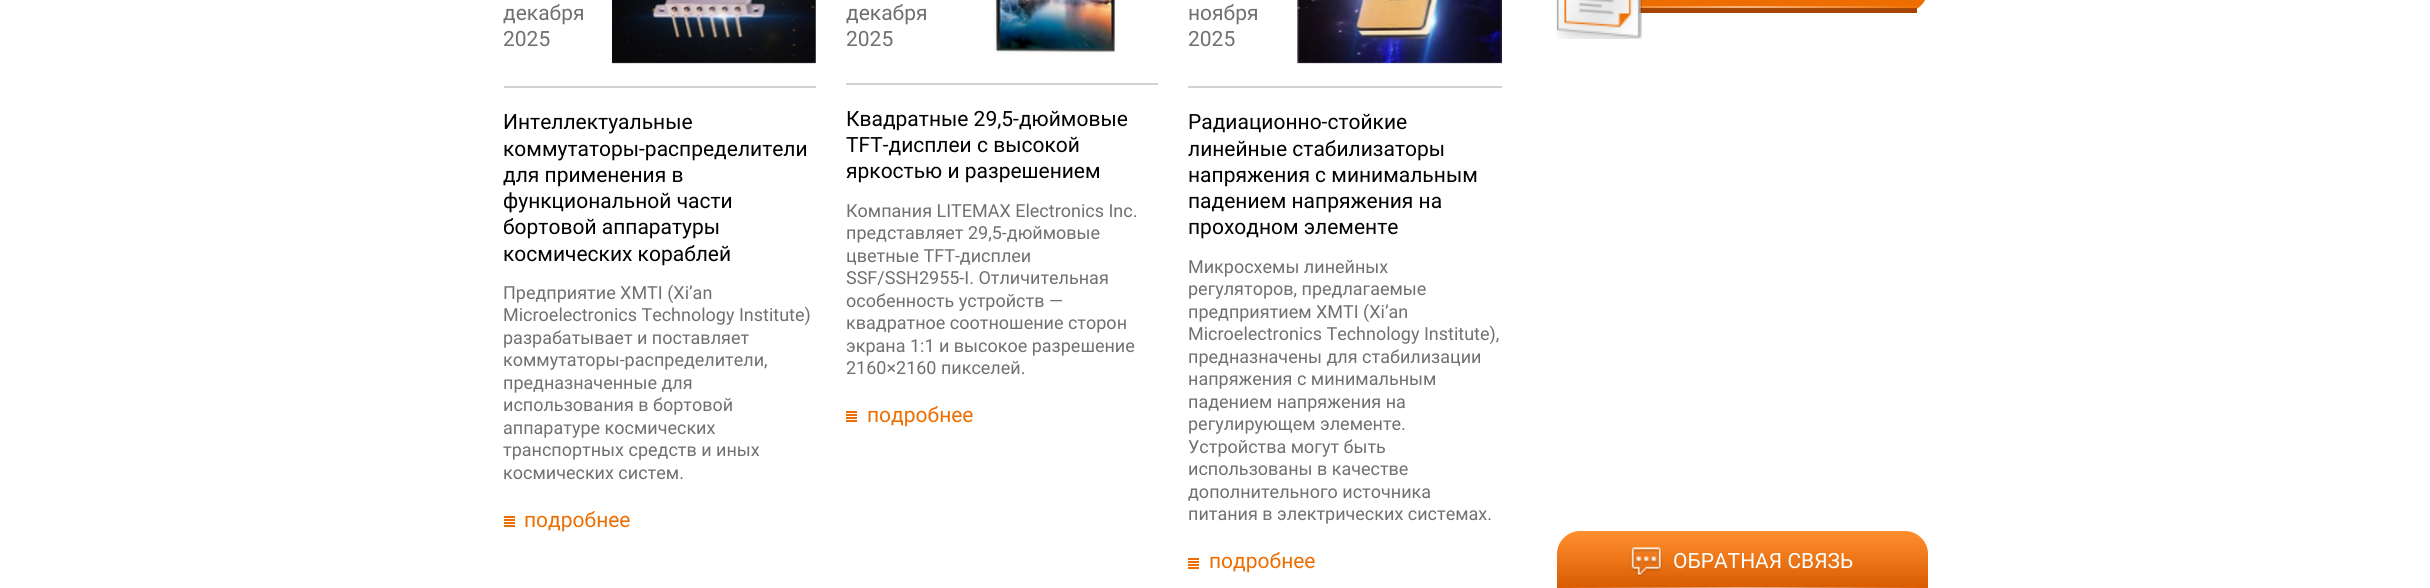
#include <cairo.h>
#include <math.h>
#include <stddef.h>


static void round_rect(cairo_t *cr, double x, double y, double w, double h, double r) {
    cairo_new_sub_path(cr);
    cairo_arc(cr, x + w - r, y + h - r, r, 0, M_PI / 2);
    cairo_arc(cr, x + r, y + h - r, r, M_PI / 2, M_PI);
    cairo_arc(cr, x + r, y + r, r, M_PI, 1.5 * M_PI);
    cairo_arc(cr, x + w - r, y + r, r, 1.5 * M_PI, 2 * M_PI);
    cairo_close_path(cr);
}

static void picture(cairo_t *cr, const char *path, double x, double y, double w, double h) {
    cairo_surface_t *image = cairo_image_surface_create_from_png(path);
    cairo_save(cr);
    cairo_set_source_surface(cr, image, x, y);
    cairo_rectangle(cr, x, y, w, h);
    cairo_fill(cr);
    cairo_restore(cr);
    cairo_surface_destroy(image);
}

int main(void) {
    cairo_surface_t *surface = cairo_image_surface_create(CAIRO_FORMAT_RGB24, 2430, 588);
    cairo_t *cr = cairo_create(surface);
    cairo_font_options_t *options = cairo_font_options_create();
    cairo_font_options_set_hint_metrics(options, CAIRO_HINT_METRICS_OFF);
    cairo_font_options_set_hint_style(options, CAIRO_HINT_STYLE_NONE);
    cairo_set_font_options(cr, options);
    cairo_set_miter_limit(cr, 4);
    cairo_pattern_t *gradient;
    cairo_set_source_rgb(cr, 1, 1, 1);
    cairo_paint(cr);
    cairo_set_source_rgb(cr, 0.824, 0.824, 0.824);
    cairo_rectangle(cr, 504, 86, 312, 2);
    cairo_fill(cr);
    cairo_select_font_face(cr, "Roboto", CAIRO_FONT_SLANT_NORMAL, CAIRO_FONT_WEIGHT_NORMAL);
    cairo_set_font_size(cr, 21);
    cairo_set_source_rgb(cr, 0.439, 0.439, 0.439);
    cairo_move_to(cr, 503, 20);
    cairo_show_text(cr, "декабря");
    cairo_move_to(cr, 503, 46);
    cairo_show_text(cr, "2025");
    picture(cr, "img1.png", 612, 0, 204, 64);
    cairo_set_source_rgb(cr, 0, 0, 0);
    cairo_move_to(cr, 503, 129);
    cairo_show_text(cr, "Интеллектуальные");
    cairo_move_to(cr, 503, 156);
    cairo_show_text(cr, "коммутаторы-распределители");
    cairo_move_to(cr, 503, 182);
    cairo_show_text(cr, "для применения в");
    cairo_move_to(cr, 503, 208);
    cairo_show_text(cr, "функциональной части");
    cairo_move_to(cr, 503, 234);
    cairo_show_text(cr, "бортовой аппаратуры");
    cairo_move_to(cr, 503, 261);
    cairo_show_text(cr, "космических кораблей");
    cairo_set_font_size(cr, 18);
    cairo_set_source_rgb(cr, 0.439, 0.439, 0.439);
    cairo_move_to(cr, 503, 299);
    cairo_show_text(cr, "Предприятие XMTI (Xi’an");
    cairo_move_to(cr, 503, 321);
    cairo_show_text(cr, "Microelectronics Technology Institute)");
    cairo_move_to(cr, 503, 344);
    cairo_show_text(cr, "разрабатывает и поставляет");
    cairo_move_to(cr, 503, 366);
    cairo_show_text(cr, "коммутаторы‑распределители,");
    cairo_move_to(cr, 503, 389);
    cairo_show_text(cr, "предназначенные для");
    cairo_move_to(cr, 503, 411);
    cairo_show_text(cr, "использования в бортовой");
    cairo_move_to(cr, 503, 434);
    cairo_show_text(cr, "аппаратуре космических");
    cairo_move_to(cr, 503, 456);
    cairo_show_text(cr, "транспортных средств и иных");
    cairo_move_to(cr, 503, 479);
    cairo_show_text(cr, "космических систем.");
    picture(cr, "img2.png", 504, 516, 11, 11);
    cairo_set_font_size(cr, 21);
    cairo_set_source_rgb(cr, 0.929, 0.427, 0);
    cairo_move_to(cr, 524, 527);
    cairo_show_text(cr, "подробнее");
    cairo_set_source_rgb(cr, 0.824, 0.824, 0.824);
    cairo_rectangle(cr, 846, 83, 312, 2);
    cairo_fill(cr);
    cairo_set_source_rgb(cr, 0.439, 0.439, 0.439);
    cairo_move_to(cr, 846, 20);
    cairo_show_text(cr, "декабря");
    cairo_move_to(cr, 846, 46);
    cairo_show_text(cr, "2025");
    picture(cr, "img3.png", 993, 0, 124, 54);
    cairo_set_source_rgb(cr, 0, 0, 0);
    cairo_move_to(cr, 846, 126);
    cairo_show_text(cr, "Квадратные 29,5‑дюймовые");
    cairo_move_to(cr, 846, 152);
    cairo_show_text(cr, "TFT‑дисплеи с высокой");
    cairo_move_to(cr, 846, 178);
    cairo_show_text(cr, "яркостью и разрешением");
    cairo_set_font_size(cr, 18);
    cairo_set_source_rgb(cr, 0.439, 0.439, 0.439);
    cairo_move_to(cr, 846, 217);
    cairo_show_text(cr, "Компания LITEMAX Electronics Inc.");
    cairo_move_to(cr, 846, 239);
    cairo_show_text(cr, "представляет 29,5‑дюймовые");
    cairo_move_to(cr, 846, 262);
    cairo_show_text(cr, "цветные TFT‑дисплеи");
    cairo_move_to(cr, 846, 284);
    cairo_show_text(cr, "SSF/SSH2955‑I. Отличительная");
    cairo_move_to(cr, 846, 307);
    cairo_show_text(cr, "особенность устройств —");
    cairo_move_to(cr, 846, 329);
    cairo_show_text(cr, "квадратное соотношение сторон");
    cairo_move_to(cr, 846, 352);
    cairo_show_text(cr, "экрана 1:1 и высокое разрешение");
    cairo_move_to(cr, 846, 374);
    cairo_show_text(cr, "2160×2160 пикселей.");
    picture(cr, "img2.png", 846, 411, 11, 11);
    cairo_set_font_size(cr, 21);
    cairo_set_source_rgb(cr, 0.929, 0.427, 0);
    cairo_move_to(cr, 867, 422);
    cairo_show_text(cr, "подробнее");
    cairo_set_source_rgb(cr, 0.824, 0.824, 0.824);
    cairo_rectangle(cr, 1188, 86, 314, 2);
    cairo_fill(cr);
    cairo_set_source_rgb(cr, 0.439, 0.439, 0.439);
    cairo_move_to(cr, 1188, 20);
    cairo_show_text(cr, "ноября");
    cairo_move_to(cr, 1188, 46);
    cairo_show_text(cr, "2025");
    picture(cr, "img4.png", 1297, 0, 205, 64);
    cairo_set_source_rgb(cr, 0, 0, 0);
    cairo_move_to(cr, 1188, 129);
    cairo_show_text(cr, "Радиационно‑стойкие");
    cairo_move_to(cr, 1188, 156);
    cairo_show_text(cr, "линейные стабилизаторы");
    cairo_move_to(cr, 1188, 182);
    cairo_show_text(cr, "напряжения с минимальным");
    cairo_move_to(cr, 1188, 208);
    cairo_show_text(cr, "падением напряжения на");
    cairo_move_to(cr, 1188, 234);
    cairo_show_text(cr, "проходном элементе");
    cairo_set_font_size(cr, 18);
    cairo_set_source_rgb(cr, 0.439, 0.439, 0.439);
    cairo_move_to(cr, 1188, 273);
    cairo_show_text(cr, "Микросхемы линейных");
    cairo_move_to(cr, 1188, 295);
    cairo_show_text(cr, "регуляторов, предлагаемые");
    cairo_move_to(cr, 1188, 318);
    cairo_show_text(cr, "предприятием XMTI (Xi’an");
    cairo_move_to(cr, 1188, 340);
    cairo_show_text(cr, "Microelectronics Technology Institute),");
    cairo_move_to(cr, 1188, 363);
    cairo_show_text(cr, "предназначены для стабилизации");
    cairo_move_to(cr, 1188, 385);
    cairo_show_text(cr, "напряжения с минимальным");
    cairo_move_to(cr, 1188, 408);
    cairo_show_text(cr, "падением напряжения на");
    cairo_move_to(cr, 1188, 430);
    cairo_show_text(cr, "регулирующем элементе.");
    cairo_move_to(cr, 1188, 453);
    cairo_show_text(cr, "Устройства могут быть");
    cairo_move_to(cr, 1188, 475);
    cairo_show_text(cr, "использованы в качестве");
    cairo_move_to(cr, 1188, 498);
    cairo_show_text(cr, "дополнительного источника");
    cairo_move_to(cr, 1188, 520);
    cairo_show_text(cr, "питания в электрических системах.");
    picture(cr, "img2.png", 1188, 558, 11, 11);
    cairo_set_font_size(cr, 21);
    cairo_set_source_rgb(cr, 0.929, 0.427, 0);
    cairo_move_to(cr, 1209, 568);
    cairo_show_text(cr, "подробнее");
    round_rect(cr, 1557, -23, 371, 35, 23);
    cairo_fill(cr);
    gradient = cairo_pattern_create_linear(1557, 6.8, 1928, 6.7);
    cairo_pattern_add_color_stop_rgba(gradient, 0, 1, 1, 1, 0);
    cairo_pattern_add_color_stop_rgba(gradient, 0.5, 1, 1, 1, 0.5);
    cairo_pattern_add_color_stop_rgba(gradient, 1, 1, 1, 1, 0);
    cairo_set_source(cr, gradient);
    cairo_pattern_destroy(gradient);
    cairo_rectangle(cr, 1639, 6, 280, 2);
    cairo_fill(cr);
    cairo_set_source_rgb(cr, 0.651, 0.271, 0.004);
    cairo_rectangle(cr, 1639, 8, 278, 5);
    cairo_fill(cr);
    picture(cr, "img5.png", 1556, 0, 86, 39);
    gradient = cairo_pattern_create_linear(1742, 531, 1742, 588);
    cairo_pattern_add_color_stop_rgba(gradient, 0, 1, 0.561, 0.184, 1);
    cairo_pattern_add_color_stop_rgba(gradient, 1, 0.851, 0.361, 0, 1);
    cairo_set_source(cr, gradient);
    cairo_pattern_destroy(gradient);
    cairo_new_path(cr);
    cairo_move_to(cr, 1580, 531);
    cairo_line_to(cr, 1905, 531);
    cairo_curve_to(cr, 1917.5, 531, 1928, 541.5, 1928, 554);
    cairo_line_to(cr, 1928, 588);
    cairo_line_to(cr, 1557, 588);
    cairo_line_to(cr, 1557, 554);
    cairo_curve_to(cr, 1557, 541.5, 1567.5, 531, 1580, 531);
    cairo_close_path(cr);
    cairo_fill(cr);
    gradient = cairo_pattern_create_linear(1557, 587, 1928, 587);
    cairo_pattern_add_color_stop_rgba(gradient, 0, 0.851, 0.361, 0, 1);
    cairo_pattern_add_color_stop_rgba(gradient, 0.5, 0.925, 0.682, 0.502, 1);
    cairo_pattern_add_color_stop_rgba(gradient, 1, 0.851, 0.361, 0, 1);
    cairo_set_source(cr, gradient);
    cairo_pattern_destroy(gradient);
    cairo_rectangle(cr, 1557, 587, 371, 1);
    cairo_fill(cr);
    picture(cr, "img6.png", 1630, 547, 32, 31);
    cairo_set_source_rgb(cr, 1, 1, 1);
    cairo_move_to(cr, 1673, 568);
    cairo_show_text(cr, "ОБРАТНАЯ СВЯЗЬ");
    cairo_surface_write_to_png(surface, "page.png");
    cairo_font_options_destroy(options);
    cairo_destroy(cr);
    cairo_surface_destroy(surface);
    return 0;
}
